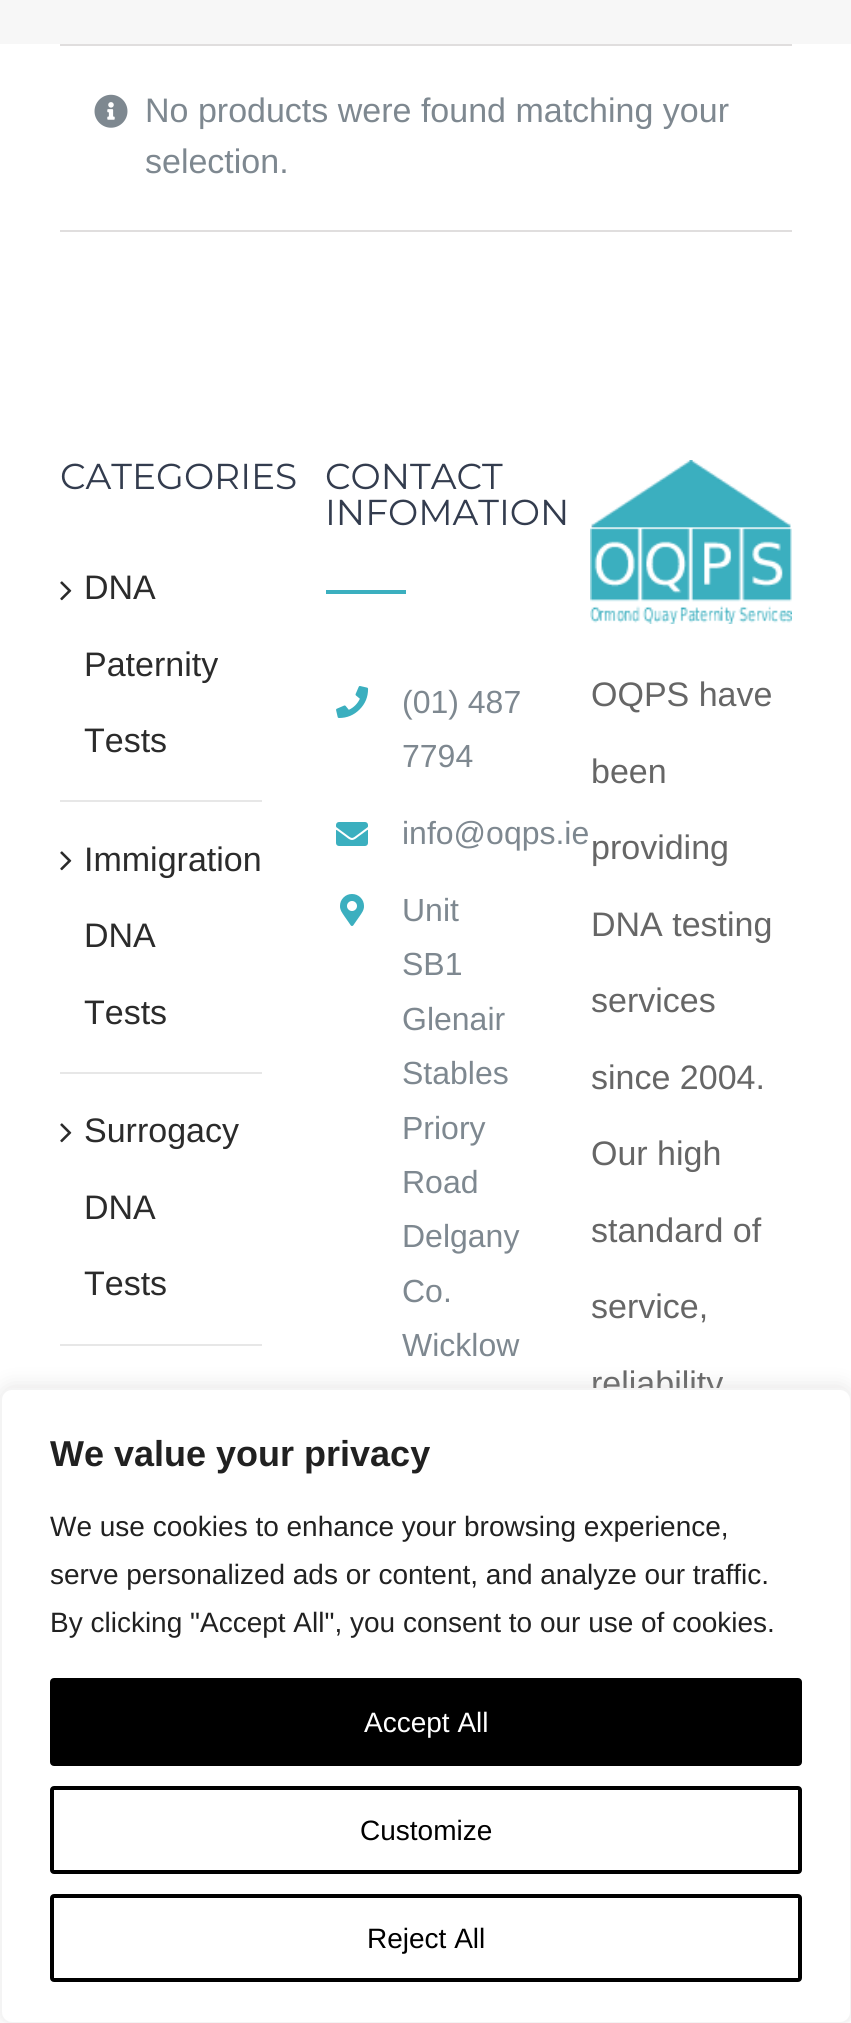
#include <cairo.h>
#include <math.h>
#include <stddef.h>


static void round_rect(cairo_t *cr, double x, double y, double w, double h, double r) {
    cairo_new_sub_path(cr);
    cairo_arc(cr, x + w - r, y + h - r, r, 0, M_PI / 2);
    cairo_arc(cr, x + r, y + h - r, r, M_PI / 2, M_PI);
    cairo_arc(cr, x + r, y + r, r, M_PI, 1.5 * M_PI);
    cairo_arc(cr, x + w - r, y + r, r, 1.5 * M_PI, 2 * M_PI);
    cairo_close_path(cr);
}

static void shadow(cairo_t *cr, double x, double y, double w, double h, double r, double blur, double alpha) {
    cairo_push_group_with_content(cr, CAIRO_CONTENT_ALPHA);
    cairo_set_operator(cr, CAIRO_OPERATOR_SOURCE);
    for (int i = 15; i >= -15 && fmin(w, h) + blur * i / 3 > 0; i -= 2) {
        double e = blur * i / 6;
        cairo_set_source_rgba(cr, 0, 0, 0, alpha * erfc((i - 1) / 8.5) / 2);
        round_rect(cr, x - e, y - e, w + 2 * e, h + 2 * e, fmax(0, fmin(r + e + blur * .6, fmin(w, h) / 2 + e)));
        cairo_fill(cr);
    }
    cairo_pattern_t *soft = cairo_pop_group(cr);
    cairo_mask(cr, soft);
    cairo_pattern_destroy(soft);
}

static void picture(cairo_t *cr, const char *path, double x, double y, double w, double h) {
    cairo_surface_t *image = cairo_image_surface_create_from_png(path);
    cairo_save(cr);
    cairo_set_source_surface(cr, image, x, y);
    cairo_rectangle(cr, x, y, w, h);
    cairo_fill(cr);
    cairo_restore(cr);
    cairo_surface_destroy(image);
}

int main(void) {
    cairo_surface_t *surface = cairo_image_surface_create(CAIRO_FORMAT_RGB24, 851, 2023);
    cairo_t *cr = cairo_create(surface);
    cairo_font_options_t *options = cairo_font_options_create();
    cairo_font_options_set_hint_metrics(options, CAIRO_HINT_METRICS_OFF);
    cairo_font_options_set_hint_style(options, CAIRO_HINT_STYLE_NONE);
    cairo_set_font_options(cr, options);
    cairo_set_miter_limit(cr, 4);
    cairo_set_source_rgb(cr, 1, 1, 1);
    cairo_paint(cr);
    cairo_set_source_rgb(cr, 0.965, 0.965, 0.965);
    cairo_rectangle(cr, 0, 0, 851, 44);
    cairo_fill(cr);
    cairo_set_source_rgb(cr, 0.878, 0.871, 0.871);
    cairo_rectangle(cr, 60, 44, 732, 2);
    cairo_fill(cr);
    cairo_rectangle(cr, 60, 230, 732, 2);
    cairo_fill(cr);
    picture(cr, "img1.png", 94, 94, 34, 34);
    cairo_select_font_face(cr, "Liberation Sans", CAIRO_FONT_SLANT_NORMAL, CAIRO_FONT_WEIGHT_NORMAL);
    cairo_set_font_size(cr, 34);
    cairo_set_source_rgb(cr, 0.494, 0.533, 0.565);
    cairo_move_to(cr, 145, 122);
    cairo_show_text(cr, "No products were found matching your");
    cairo_move_to(cr, 145, 173);
    cairo_show_text(cr, "selection.");
    cairo_select_font_face(cr, "Montserrat Thin", CAIRO_FONT_SLANT_NORMAL, CAIRO_FONT_WEIGHT_NORMAL);
    cairo_set_font_size(cr, 36);
    cairo_set_source_rgb(cr, 0.2, 0.235, 0.306);
    cairo_move_to(cr, 60, 489);
    cairo_show_text(cr, "CATEGORIES");
    cairo_set_source_rgb(cr, 0.906, 0.906, 0.906);
    cairo_rectangle(cr, 60, 800, 202, 2);
    cairo_fill(cr);
    picture(cr, "img2.png", 60, 581, 12, 20);
    cairo_select_font_face(cr, "Liberation Sans", CAIRO_FONT_SLANT_NORMAL, CAIRO_FONT_WEIGHT_NORMAL);
    cairo_set_font_size(cr, 34);
    cairo_set_source_rgb(cr, 0.169, 0.169, 0.169);
    cairo_move_to(cr, 84, 599);
    cairo_show_text(cr, "DNA");
    cairo_move_to(cr, 84, 676);
    cairo_show_text(cr, "Paternity");
    cairo_move_to(cr, 84, 752);
    cairo_show_text(cr, "Tests");
    cairo_set_source_rgb(cr, 0.906, 0.906, 0.906);
    cairo_rectangle(cr, 60, 1072, 202, 2);
    cairo_fill(cr);
    picture(cr, "img2.png", 60, 851, 12, 20);
    cairo_set_source_rgb(cr, 0.169, 0.169, 0.169);
    cairo_move_to(cr, 84, 871);
    cairo_show_text(cr, "Immigration");
    cairo_move_to(cr, 84, 947);
    cairo_show_text(cr, "DNA");
    cairo_move_to(cr, 84, 1024);
    cairo_show_text(cr, "Tests");
    cairo_set_source_rgb(cr, 0.906, 0.906, 0.906);
    cairo_rectangle(cr, 60, 1344, 202, 2);
    cairo_fill(cr);
    picture(cr, "img2.png", 60, 1123, 12, 20);
    cairo_set_source_rgb(cr, 0.169, 0.169, 0.169);
    cairo_move_to(cr, 84, 1142);
    cairo_show_text(cr, "Surrogacy");
    cairo_move_to(cr, 84, 1219);
    cairo_show_text(cr, "DNA");
    cairo_move_to(cr, 84, 1295);
    cairo_show_text(cr, "Tests");
    cairo_select_font_face(cr, "Montserrat Thin", CAIRO_FONT_SLANT_NORMAL, CAIRO_FONT_WEIGHT_NORMAL);
    cairo_set_font_size(cr, 36);
    cairo_set_source_rgb(cr, 0.2, 0.235, 0.306);
    cairo_move_to(cr, 325, 489);
    cairo_show_text(cr, "CONTACT");
    cairo_move_to(cr, 325, 525);
    cairo_show_text(cr, "INFOMATION");
    cairo_set_source_rgb(cr, 0.231, 0.686, 0.749);
    cairo_rectangle(cr, 326, 590, 80, 4);
    cairo_fill(cr);
    picture(cr, "img3.png", 336, 686, 33, 32);
    cairo_select_font_face(cr, "Liberation Sans", CAIRO_FONT_SLANT_NORMAL, CAIRO_FONT_WEIGHT_NORMAL);
    cairo_set_font_size(cr, 32);
    cairo_set_source_rgb(cr, 0.494, 0.533, 0.565);
    cairo_move_to(cr, 402, 713);
    cairo_show_text(cr, "(01) 487");
    cairo_move_to(cr, 402, 767);
    cairo_show_text(cr, "7794");
    picture(cr, "img4.png", 336, 822, 32, 24);
    cairo_move_to(cr, 402, 844);
    cairo_show_text(cr, "info@oqps.ie");
    picture(cr, "img5.png", 340, 894, 24, 32);
    cairo_move_to(cr, 402, 921);
    cairo_show_text(cr, "Unit");
    cairo_move_to(cr, 402, 975);
    cairo_show_text(cr, "SB1");
    cairo_move_to(cr, 402, 1030);
    cairo_show_text(cr, "Glenair");
    cairo_move_to(cr, 402, 1084);
    cairo_show_text(cr, "Stables");
    cairo_move_to(cr, 402, 1139);
    cairo_show_text(cr, "Priory");
    cairo_move_to(cr, 402, 1193);
    cairo_show_text(cr, "Road");
    cairo_move_to(cr, 402, 1247);
    cairo_show_text(cr, "Delgany");
    cairo_move_to(cr, 402, 1302);
    cairo_show_text(cr, "Co.");
    cairo_move_to(cr, 402, 1356);
    cairo_show_text(cr, "Wicklow");
    picture(cr, "img6.png", 590, 460, 202, 164);
    cairo_set_font_size(cr, 34);
    cairo_set_source_rgb(cr, 0.4, 0.4, 0.4);
    cairo_move_to(cr, 591, 706);
    cairo_show_text(cr, "OQPS have");
    cairo_move_to(cr, 591, 783);
    cairo_show_text(cr, "been");
    cairo_move_to(cr, 591, 859);
    cairo_show_text(cr, "providing");
    cairo_move_to(cr, 591, 936);
    cairo_show_text(cr, "DNA testing");
    cairo_move_to(cr, 591, 1012);
    cairo_show_text(cr, "services");
    cairo_move_to(cr, 591, 1089);
    cairo_show_text(cr, "since 2004.");
    cairo_move_to(cr, 591, 1165);
    cairo_show_text(cr, "Our high");
    cairo_move_to(cr, 591, 1242);
    cairo_show_text(cr, "standard of");
    cairo_move_to(cr, 591, 1318);
    cairo_show_text(cr, "service,");
    cairo_move_to(cr, 591, 1395);
    cairo_show_text(cr, "reliability");
    cairo_set_source_rgb(cr, 0.675, 0.671, 0.671);
    shadow(cr, 0, 1386, 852, 636, 12, 10, 0.3);
    cairo_set_source_rgb(cr, 1, 1, 1);
    round_rect(cr, 1, 1389, 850, 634, 11);
    cairo_fill_preserve(cr);
    cairo_set_source_rgb(cr, 0.957, 0.957, 0.957);
    cairo_stroke(cr);
    cairo_select_font_face(cr, "Liberation Sans", CAIRO_FONT_SLANT_NORMAL, CAIRO_FONT_WEIGHT_BOLD);
    cairo_set_font_size(cr, 36);
    cairo_set_source_rgb(cr, 0.129, 0.129, 0.129);
    cairo_move_to(cr, 50, 1466);
    cairo_show_text(cr, "We value your privacy");
    cairo_select_font_face(cr, "Liberation Sans", CAIRO_FONT_SLANT_NORMAL, CAIRO_FONT_WEIGHT_NORMAL);
    cairo_set_font_size(cr, 28);
    cairo_move_to(cr, 50, 1536);
    cairo_show_text(cr, "We use cookies to enhance your browsing experience,");
    cairo_move_to(cr, 50, 1584);
    cairo_show_text(cr, "serve personalized ads or content, and analyze our traffic.");
    cairo_move_to(cr, 50, 1632);
    cairo_show_text(cr, "By clicking \"Accept All\", you consent to our use of cookies.");
    cairo_set_source_rgb(cr, 0, 0, 0);
    round_rect(cr, 52, 1680, 748, 84, 2);
    cairo_fill_preserve(cr);
    cairo_set_line_width(cr, 4);
    cairo_stroke(cr);
    cairo_set_source_rgb(cr, 1, 1, 1);
    cairo_move_to(cr, 364, 1732);
    cairo_show_text(cr, "Accept All");
    round_rect(cr, 52, 1788, 748, 84, 2);
    cairo_set_source_rgb(cr, 0, 0, 0);
    cairo_stroke(cr);
    cairo_move_to(cr, 360, 1840);
    cairo_show_text(cr, "Customize");
    round_rect(cr, 52, 1896, 748, 84, 2);
    cairo_stroke(cr);
    cairo_move_to(cr, 367, 1948);
    cairo_show_text(cr, "Reject All");
    cairo_surface_write_to_png(surface, "page.png");
    cairo_font_options_destroy(options);
    cairo_destroy(cr);
    cairo_surface_destroy(surface);
    return 0;
}
